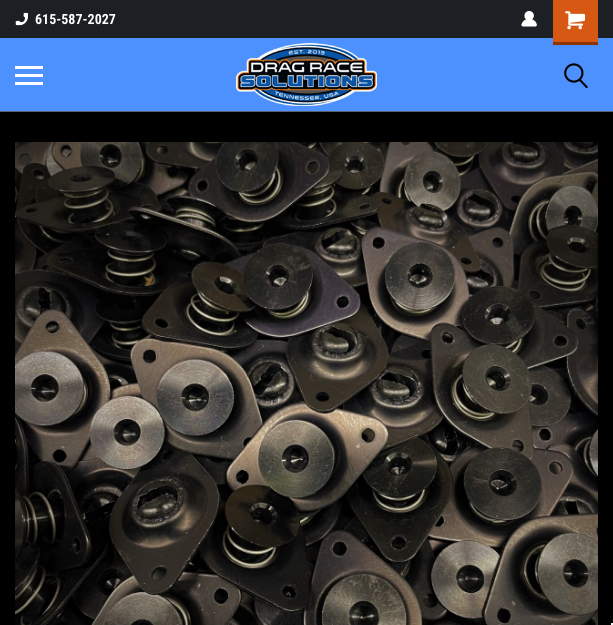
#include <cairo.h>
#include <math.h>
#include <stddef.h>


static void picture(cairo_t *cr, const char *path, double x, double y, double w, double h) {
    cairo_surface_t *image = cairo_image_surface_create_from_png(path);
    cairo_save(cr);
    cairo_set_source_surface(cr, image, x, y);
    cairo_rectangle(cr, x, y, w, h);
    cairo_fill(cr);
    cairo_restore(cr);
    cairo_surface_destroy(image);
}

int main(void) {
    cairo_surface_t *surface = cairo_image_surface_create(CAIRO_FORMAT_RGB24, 613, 625);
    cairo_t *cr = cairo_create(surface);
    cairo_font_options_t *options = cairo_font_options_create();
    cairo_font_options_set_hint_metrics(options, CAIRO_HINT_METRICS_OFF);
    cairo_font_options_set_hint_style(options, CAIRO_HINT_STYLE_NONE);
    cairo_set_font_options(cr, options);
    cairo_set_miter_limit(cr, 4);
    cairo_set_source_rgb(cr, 0, 0, 0);
    cairo_paint(cr);
    cairo_set_source_rgb(cr, 0.357, 0.376, 0.451);
    cairo_rectangle(cr, 0, 111, 613, 1);
    cairo_fill(cr);
    cairo_set_source_rgb(cr, 0.11, 0.122, 0.141);
    cairo_rectangle(cr, 0, 0, 613, 38);
    cairo_fill(cr);
    picture(cr, "img1.png", 15, 12, 13, 14);
    cairo_select_font_face(cr, "Roboto Condensed", CAIRO_FONT_SLANT_NORMAL, CAIRO_FONT_WEIGHT_BOLD);
    cairo_set_font_size(cr, 14);
    cairo_set_source_rgb(cr, 1, 1, 1);
    cairo_move_to(cr, 35, 24);
    cairo_show_text(cr, "615-587-2027");
    picture(cr, "img2.png", 521, 11, 16, 16);
    cairo_set_source_rgb(cr, 0.298, 0.569, 0.992);
    cairo_rectangle(cr, 0, 38, 613, 73);
    cairo_fill(cr);
    cairo_set_source_rgb(cr, 0.843, 0.345, 0.075);
    cairo_rectangle(cr, 553, 0, 45, 42);
    cairo_fill(cr);
    cairo_set_source_rgb(cr, 0.561, 0.196, 0);
    cairo_rectangle(cr, 553, 42, 45, 3);
    cairo_fill(cr);
    picture(cr, "img3.png", 565, 11, 20, 19);
    cairo_set_source_rgb(cr, 1, 1, 1);
    cairo_rectangle(cr, 15, 74, 28, 3);
    cairo_fill(cr);
    cairo_rectangle(cr, 15, 66, 28, 3);
    cairo_fill(cr);
    cairo_rectangle(cr, 15, 82, 28, 3);
    cairo_fill(cr);
    picture(cr, "img4.png", 236, 43, 141, 63);
    picture(cr, "img5.png", 564, 63, 24, 25);
    picture(cr, "img6.png", 15, 142, 583, 483);
    cairo_set_source_rgb(cr, 0.961, 0.961, 0.961);
    cairo_rectangle(cr, 611, 623, 2, 2);
    cairo_fill(cr);
    cairo_surface_write_to_png(surface, "page.png");
    cairo_font_options_destroy(options);
    cairo_destroy(cr);
    cairo_surface_destroy(surface);
    return 0;
}
